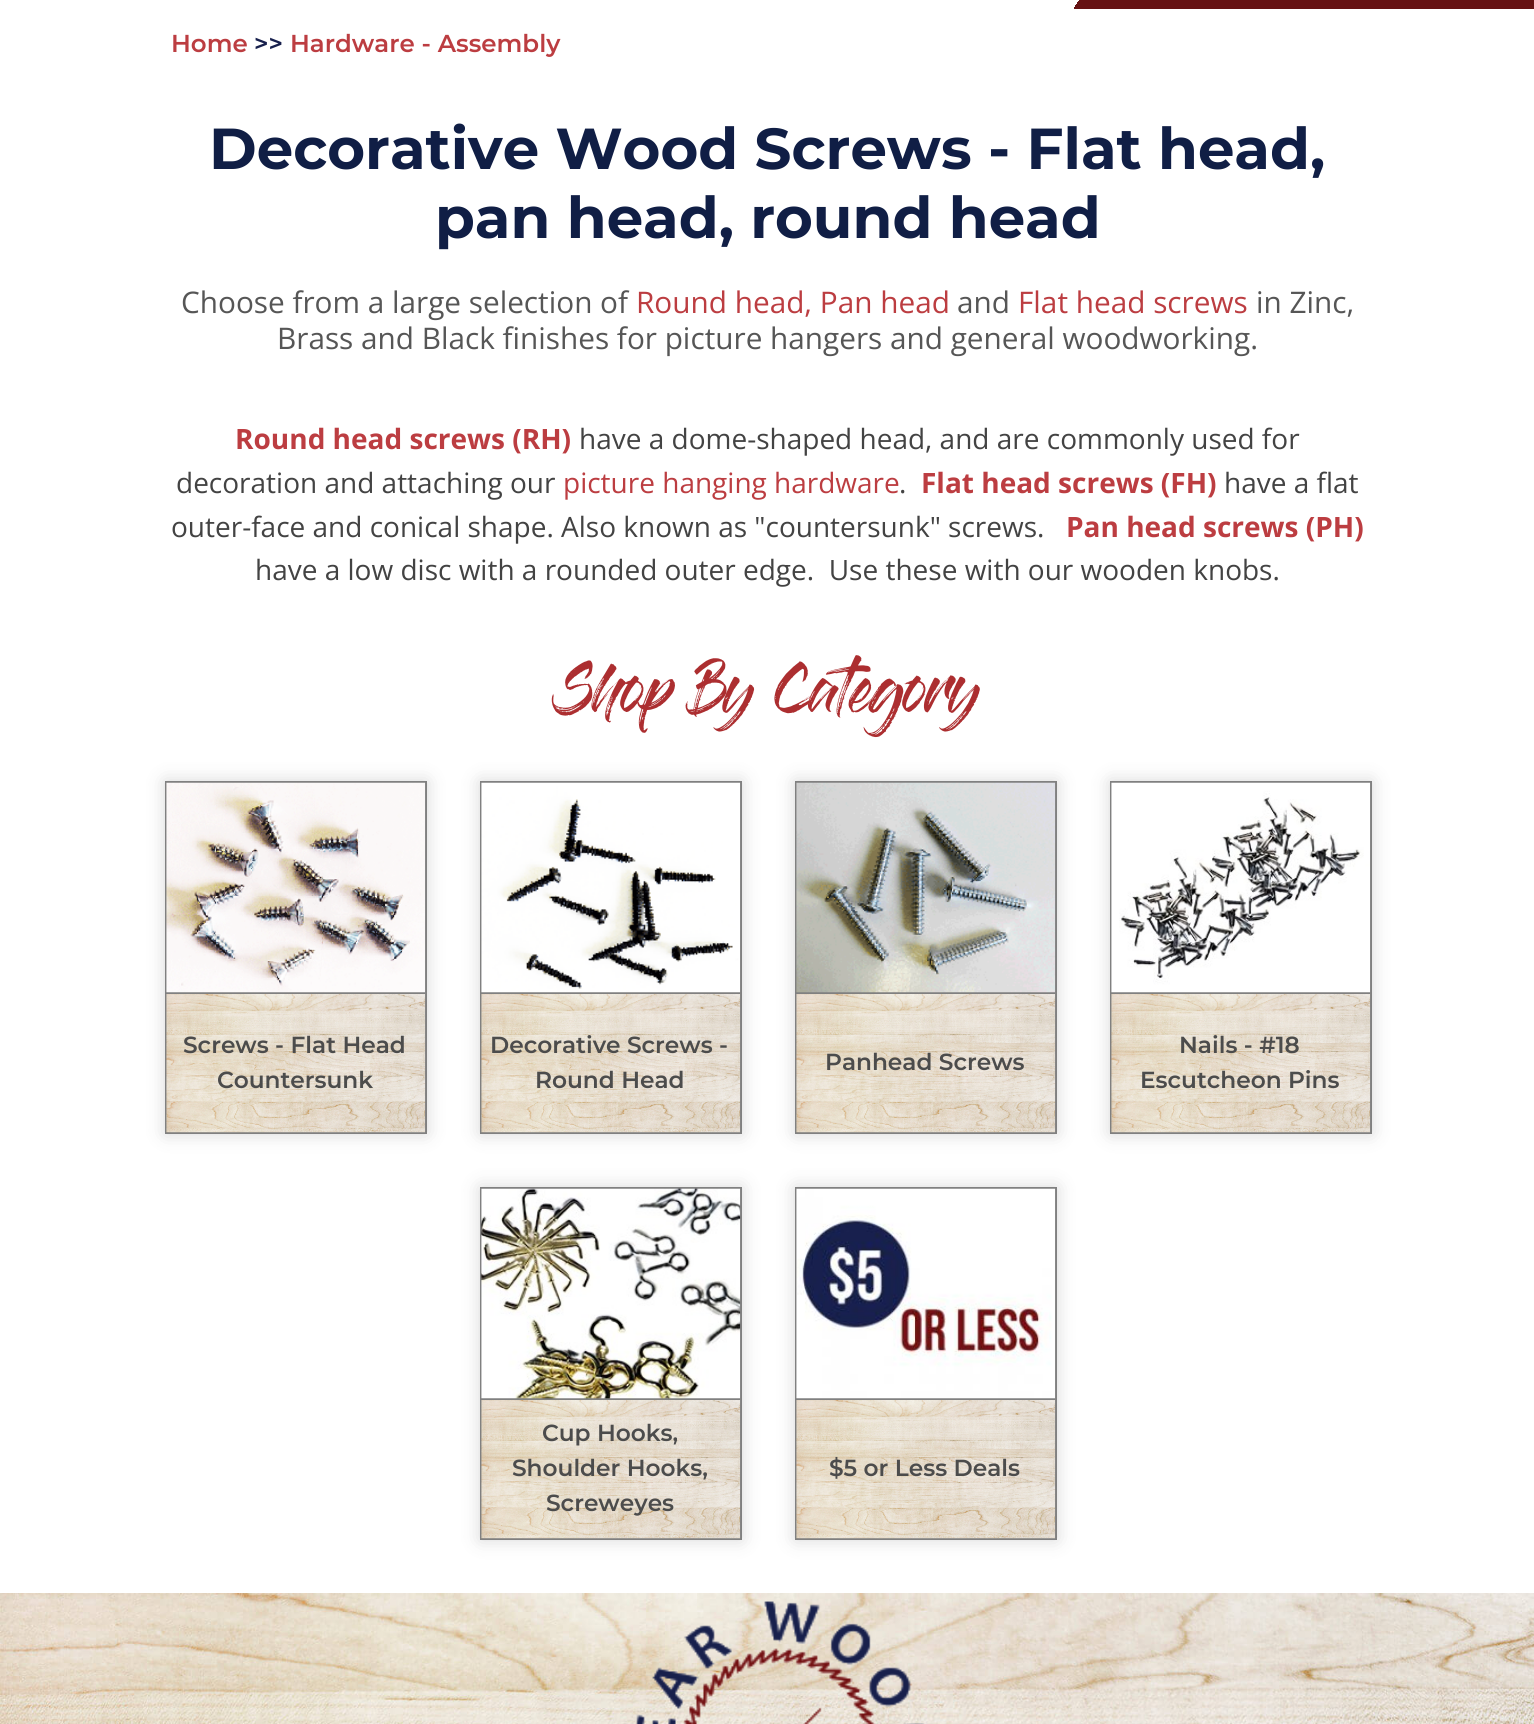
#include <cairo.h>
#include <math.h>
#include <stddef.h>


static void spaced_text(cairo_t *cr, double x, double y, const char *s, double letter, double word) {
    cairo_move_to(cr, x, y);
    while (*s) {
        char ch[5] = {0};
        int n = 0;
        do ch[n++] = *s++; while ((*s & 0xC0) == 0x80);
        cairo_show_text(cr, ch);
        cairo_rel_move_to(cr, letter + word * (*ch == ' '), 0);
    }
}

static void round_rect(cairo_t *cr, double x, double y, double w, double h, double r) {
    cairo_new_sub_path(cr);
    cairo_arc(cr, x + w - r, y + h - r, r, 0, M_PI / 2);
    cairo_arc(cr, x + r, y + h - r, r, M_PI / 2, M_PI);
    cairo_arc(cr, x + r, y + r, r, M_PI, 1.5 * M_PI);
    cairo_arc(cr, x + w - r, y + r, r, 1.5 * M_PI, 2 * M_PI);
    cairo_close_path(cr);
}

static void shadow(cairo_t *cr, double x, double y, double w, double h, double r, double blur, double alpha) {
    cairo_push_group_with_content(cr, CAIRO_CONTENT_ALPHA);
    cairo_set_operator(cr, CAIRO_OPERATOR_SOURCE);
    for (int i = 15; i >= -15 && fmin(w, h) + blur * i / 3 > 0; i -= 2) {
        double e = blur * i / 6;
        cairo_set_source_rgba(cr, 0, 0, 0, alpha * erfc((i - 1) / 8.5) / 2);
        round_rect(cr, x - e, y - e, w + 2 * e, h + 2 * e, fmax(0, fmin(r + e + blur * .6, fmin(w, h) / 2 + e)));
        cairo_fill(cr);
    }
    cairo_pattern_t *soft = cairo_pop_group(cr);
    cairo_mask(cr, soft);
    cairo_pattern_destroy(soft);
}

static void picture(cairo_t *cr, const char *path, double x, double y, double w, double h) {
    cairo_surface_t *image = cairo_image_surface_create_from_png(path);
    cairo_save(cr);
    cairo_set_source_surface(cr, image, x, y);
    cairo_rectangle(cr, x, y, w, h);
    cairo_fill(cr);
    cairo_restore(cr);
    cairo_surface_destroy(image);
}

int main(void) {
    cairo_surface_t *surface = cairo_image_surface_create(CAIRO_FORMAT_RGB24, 1534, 1724);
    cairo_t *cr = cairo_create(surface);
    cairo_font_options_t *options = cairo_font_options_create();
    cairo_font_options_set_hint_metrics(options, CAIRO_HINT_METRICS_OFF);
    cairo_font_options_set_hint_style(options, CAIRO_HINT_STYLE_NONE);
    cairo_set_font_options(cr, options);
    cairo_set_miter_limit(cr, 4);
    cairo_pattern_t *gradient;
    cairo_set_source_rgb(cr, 1, 1, 1);
    cairo_paint(cr);
    gradient = cairo_pattern_create_linear(174, -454, 1361, 288);
    cairo_pattern_add_color_stop_rgba(gradient, 0.72, 1, 1, 1, 1);
    cairo_pattern_add_color_stop_rgba(gradient, 0.72, 0.4, 0.071, 0.075, 1);
    cairo_set_source(cr, gradient);
    cairo_pattern_destroy(gradient);
    cairo_rectangle(cr, 1074, 0, 460, 9);
    cairo_fill(cr);
    cairo_select_font_face(cr, "Montserrat SemiBold", CAIRO_FONT_SLANT_NORMAL, CAIRO_FONT_WEIGHT_NORMAL);
    cairo_set_font_size(cr, 24.5);
    cairo_set_source_rgb(cr, 0.737, 0.239, 0.255);
    cairo_move_to(cr, 171, 52);
    cairo_show_text(cr, "Home");
    cairo_set_source_rgb(cr, 0.09, 0.125, 0.302);
    cairo_move_to(cr, 254, 52);
    cairo_show_text(cr, ">>");
    cairo_set_source_rgb(cr, 0.737, 0.239, 0.255);
    cairo_move_to(cr, 290, 52);
    cairo_show_text(cr, "Hardware - Assembly");
    cairo_select_font_face(cr, "Montserrat", CAIRO_FONT_SLANT_NORMAL, CAIRO_FONT_WEIGHT_BOLD);
    cairo_set_font_size(cr, 57.75);
    cairo_set_source_rgb(cr, 0.063, 0.118, 0.271);
    cairo_move_to(cr, 209, 169);
    cairo_show_text(cr, "Decorative Wood Screws - Flat head,");
    cairo_move_to(cr, 435, 238);
    cairo_show_text(cr, "pan head, round head");
    cairo_select_font_face(cr, "Open Sans", CAIRO_FONT_SLANT_NORMAL, CAIRO_FONT_WEIGHT_NORMAL);
    cairo_set_font_size(cr, 29.75);
    cairo_set_source_rgb(cr, 0.337, 0.337, 0.337);
    cairo_move_to(cr, 181, 313);
    cairo_show_text(cr, "Choose from a large selection of");
    cairo_set_source_rgb(cr, 0.737, 0.239, 0.255);
    cairo_move_to(cr, 636, 313);
    cairo_show_text(cr, "Round head, Pan head");
    cairo_set_source_rgb(cr, 0.337, 0.337, 0.337);
    cairo_move_to(cr, 957, 313);
    cairo_show_text(cr, "and");
    cairo_set_source_rgb(cr, 0.737, 0.239, 0.255);
    cairo_move_to(cr, 1018, 313);
    cairo_show_text(cr, "Flat head screws");
    cairo_set_source_rgb(cr, 0.337, 0.337, 0.337);
    cairo_move_to(cr, 1256, 313);
    cairo_show_text(cr, "in Zinc,");
    cairo_move_to(cr, 277, 349);
    cairo_show_text(cr, "Brass and Black finishes for picture hangers and general woodworking.");
    cairo_select_font_face(cr, "Open Sans", CAIRO_FONT_SLANT_NORMAL, CAIRO_FONT_WEIGHT_BOLD);
    cairo_set_font_size(cr, 28);
    cairo_set_source_rgb(cr, 0.737, 0.239, 0.255);
    cairo_move_to(cr, 235, 449);
    cairo_show_text(cr, "Round head screws (RH)");
    cairo_select_font_face(cr, "Open Sans", CAIRO_FONT_SLANT_NORMAL, CAIRO_FONT_WEIGHT_NORMAL);
    cairo_set_source_rgb(cr, 0.263, 0.263, 0.263);
    cairo_move_to(cr, 579, 449);
    cairo_show_text(cr, "have a dome-shaped head, and are commonly used for");
    cairo_move_to(cr, 176, 493);
    cairo_show_text(cr, "decoration and attaching our");
    cairo_set_source_rgb(cr, 0.737, 0.239, 0.255);
    cairo_move_to(cr, 563, 493);
    cairo_show_text(cr, "picture hanging hardware");
    cairo_set_source_rgb(cr, 0.263, 0.263, 0.263);
    cairo_move_to(cr, 899, 493);
    cairo_show_text(cr, ".");
    cairo_select_font_face(cr, "Open Sans", CAIRO_FONT_SLANT_NORMAL, CAIRO_FONT_WEIGHT_BOLD);
    cairo_set_source_rgb(cr, 0.737, 0.239, 0.255);
    cairo_move_to(cr, 921, 493);
    cairo_show_text(cr, "Flat head screws (FH)");
    cairo_select_font_face(cr, "Open Sans", CAIRO_FONT_SLANT_NORMAL, CAIRO_FONT_WEIGHT_NORMAL);
    cairo_set_source_rgb(cr, 0.263, 0.263, 0.263);
    cairo_move_to(cr, 1224, 493);
    cairo_show_text(cr, "have a flat");
    cairo_move_to(cr, 171, 537);
    cairo_show_text(cr, "outer-face and conical shape. Also known as \"countersunk\" screws.");
    cairo_select_font_face(cr, "Open Sans", CAIRO_FONT_SLANT_NORMAL, CAIRO_FONT_WEIGHT_BOLD);
    cairo_set_source_rgb(cr, 0.737, 0.239, 0.255);
    cairo_move_to(cr, 1066, 537);
    cairo_show_text(cr, "Pan head screws (PH)");
    cairo_select_font_face(cr, "Open Sans", CAIRO_FONT_SLANT_NORMAL, CAIRO_FONT_WEIGHT_NORMAL);
    cairo_set_source_rgb(cr, 0.263, 0.263, 0.263);
    cairo_move_to(cr, 255, 580);
    cairo_show_text(cr, "have a low disc with a rounded outer edge.  Use these with our wooden knobs.");
    cairo_select_font_face(cr, "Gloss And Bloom", CAIRO_FONT_SLANT_NORMAL, CAIRO_FONT_WEIGHT_NORMAL);
    cairo_set_font_size(cr, 49);
    cairo_set_source_rgb(cr, 0.675, 0.18, 0.188);
    spaced_text(cr, 556, 712, "Shop By Category", -1.75, 0);
    cairo_set_source_rgb(cr, 0.2, 0.2, 0.2);
    shadow(cr, 165, 781, 262, 353, 0, 9, 0.2);
    cairo_rectangle(cr, 166, 782, 260, 351);
    cairo_set_source_rgb(cr, 0.502, 0.502, 0.502);
    cairo_stroke(cr);
    picture(cr, "img2.png", 166, 992, 260, 141);
    cairo_rectangle(cr, 166, 992, 259, 2);
    cairo_fill(cr);
    picture(cr, "img1.png", 166, 782, 260, 211);
    cairo_select_font_face(cr, "Montserrat SemiBold", CAIRO_FONT_SLANT_NORMAL, CAIRO_FONT_WEIGHT_NORMAL);
    cairo_set_font_size(cr, 23.25);
    cairo_set_source_rgb(cr, 0.298, 0.298, 0.298);
    cairo_move_to(cr, 183, 1053);
    cairo_show_text(cr, "Screws - Flat Head");
    cairo_move_to(cr, 217, 1088);
    cairo_show_text(cr, "Countersunk");
    cairo_set_source_rgb(cr, 0.2, 0.2, 0.2);
    shadow(cr, 480, 781, 262, 353, 0, 9, 0.2);
    cairo_rectangle(cr, 481, 782, 260, 351);
    cairo_set_source_rgb(cr, 0.502, 0.502, 0.502);
    cairo_stroke(cr);
    picture(cr, "img4.png", 481, 992, 260, 141);
    cairo_rectangle(cr, 481, 992, 259, 2);
    cairo_fill(cr);
    picture(cr, "img3.png", 481, 782, 260, 211);
    cairo_set_source_rgb(cr, 0.298, 0.298, 0.298);
    cairo_move_to(cr, 490, 1053);
    cairo_show_text(cr, "Decorative Screws -");
    cairo_move_to(cr, 535, 1088);
    cairo_show_text(cr, "Round Head");
    cairo_set_source_rgb(cr, 0.2, 0.2, 0.2);
    shadow(cr, 795, 781, 262, 353, 0, 9, 0.2);
    cairo_rectangle(cr, 796, 782, 260, 351);
    cairo_set_source_rgb(cr, 0.502, 0.502, 0.502);
    cairo_stroke(cr);
    picture(cr, "img4.png", 796, 992, 260, 141);
    cairo_rectangle(cr, 796, 992, 259, 2);
    cairo_fill(cr);
    picture(cr, "img5.png", 796, 782, 260, 211);
    cairo_set_source_rgb(cr, 0.298, 0.298, 0.298);
    cairo_move_to(cr, 825, 1070);
    cairo_show_text(cr, "Panhead Screws");
    cairo_set_source_rgb(cr, 0.2, 0.2, 0.2);
    shadow(cr, 1110, 781, 262, 353, 0, 9, 0.2);
    cairo_rectangle(cr, 1111, 782, 260, 351);
    cairo_set_source_rgb(cr, 0.502, 0.502, 0.502);
    cairo_stroke(cr);
    picture(cr, "img7.png", 1111, 992, 260, 141);
    cairo_rectangle(cr, 1111, 992, 259, 2);
    cairo_fill(cr);
    picture(cr, "img6.png", 1111, 782, 260, 211);
    cairo_set_source_rgb(cr, 0.298, 0.298, 0.298);
    cairo_move_to(cr, 1179, 1053);
    cairo_show_text(cr, "Nails - #18");
    cairo_move_to(cr, 1140, 1088);
    cairo_show_text(cr, "Escutcheon Pins");
    cairo_set_source_rgb(cr, 0.2, 0.2, 0.2);
    shadow(cr, 480, 1187, 262, 353, 0, 9, 0.2);
    cairo_rectangle(cr, 481, 1188, 260, 351);
    cairo_set_source_rgb(cr, 0.502, 0.502, 0.502);
    cairo_stroke(cr);
    picture(cr, "img9.png", 481, 1398, 260, 141);
    cairo_rectangle(cr, 481, 1398, 259, 2);
    cairo_fill(cr);
    picture(cr, "img8.png", 481, 1188, 260, 211);
    cairo_set_source_rgb(cr, 0.298, 0.298, 0.298);
    cairo_move_to(cr, 542, 1441);
    cairo_show_text(cr, "Cup Hooks,");
    cairo_move_to(cr, 512, 1476);
    cairo_show_text(cr, "Shoulder Hooks,");
    cairo_move_to(cr, 546, 1511);
    cairo_show_text(cr, "Screweyes");
    cairo_set_source_rgb(cr, 0.2, 0.2, 0.2);
    shadow(cr, 795, 1187, 262, 353, 0, 9, 0.2);
    cairo_rectangle(cr, 796, 1188, 260, 351);
    cairo_set_source_rgb(cr, 0.502, 0.502, 0.502);
    cairo_stroke(cr);
    picture(cr, "img9.png", 796, 1398, 260, 141);
    cairo_rectangle(cr, 796, 1398, 259, 2);
    cairo_fill(cr);
    picture(cr, "img10.png", 796, 1188, 260, 211);
    cairo_set_source_rgb(cr, 0.298, 0.298, 0.298);
    cairo_move_to(cr, 829, 1476);
    cairo_show_text(cr, "$5 or Less Deals");
    picture(cr, "img11.png", 0, 1593, 1534, 131);
    picture(cr, "img12.png", 636, 1601, 289, 123);
    cairo_surface_write_to_png(surface, "page.png");
    cairo_font_options_destroy(options);
    cairo_destroy(cr);
    cairo_surface_destroy(surface);
    return 0;
}
